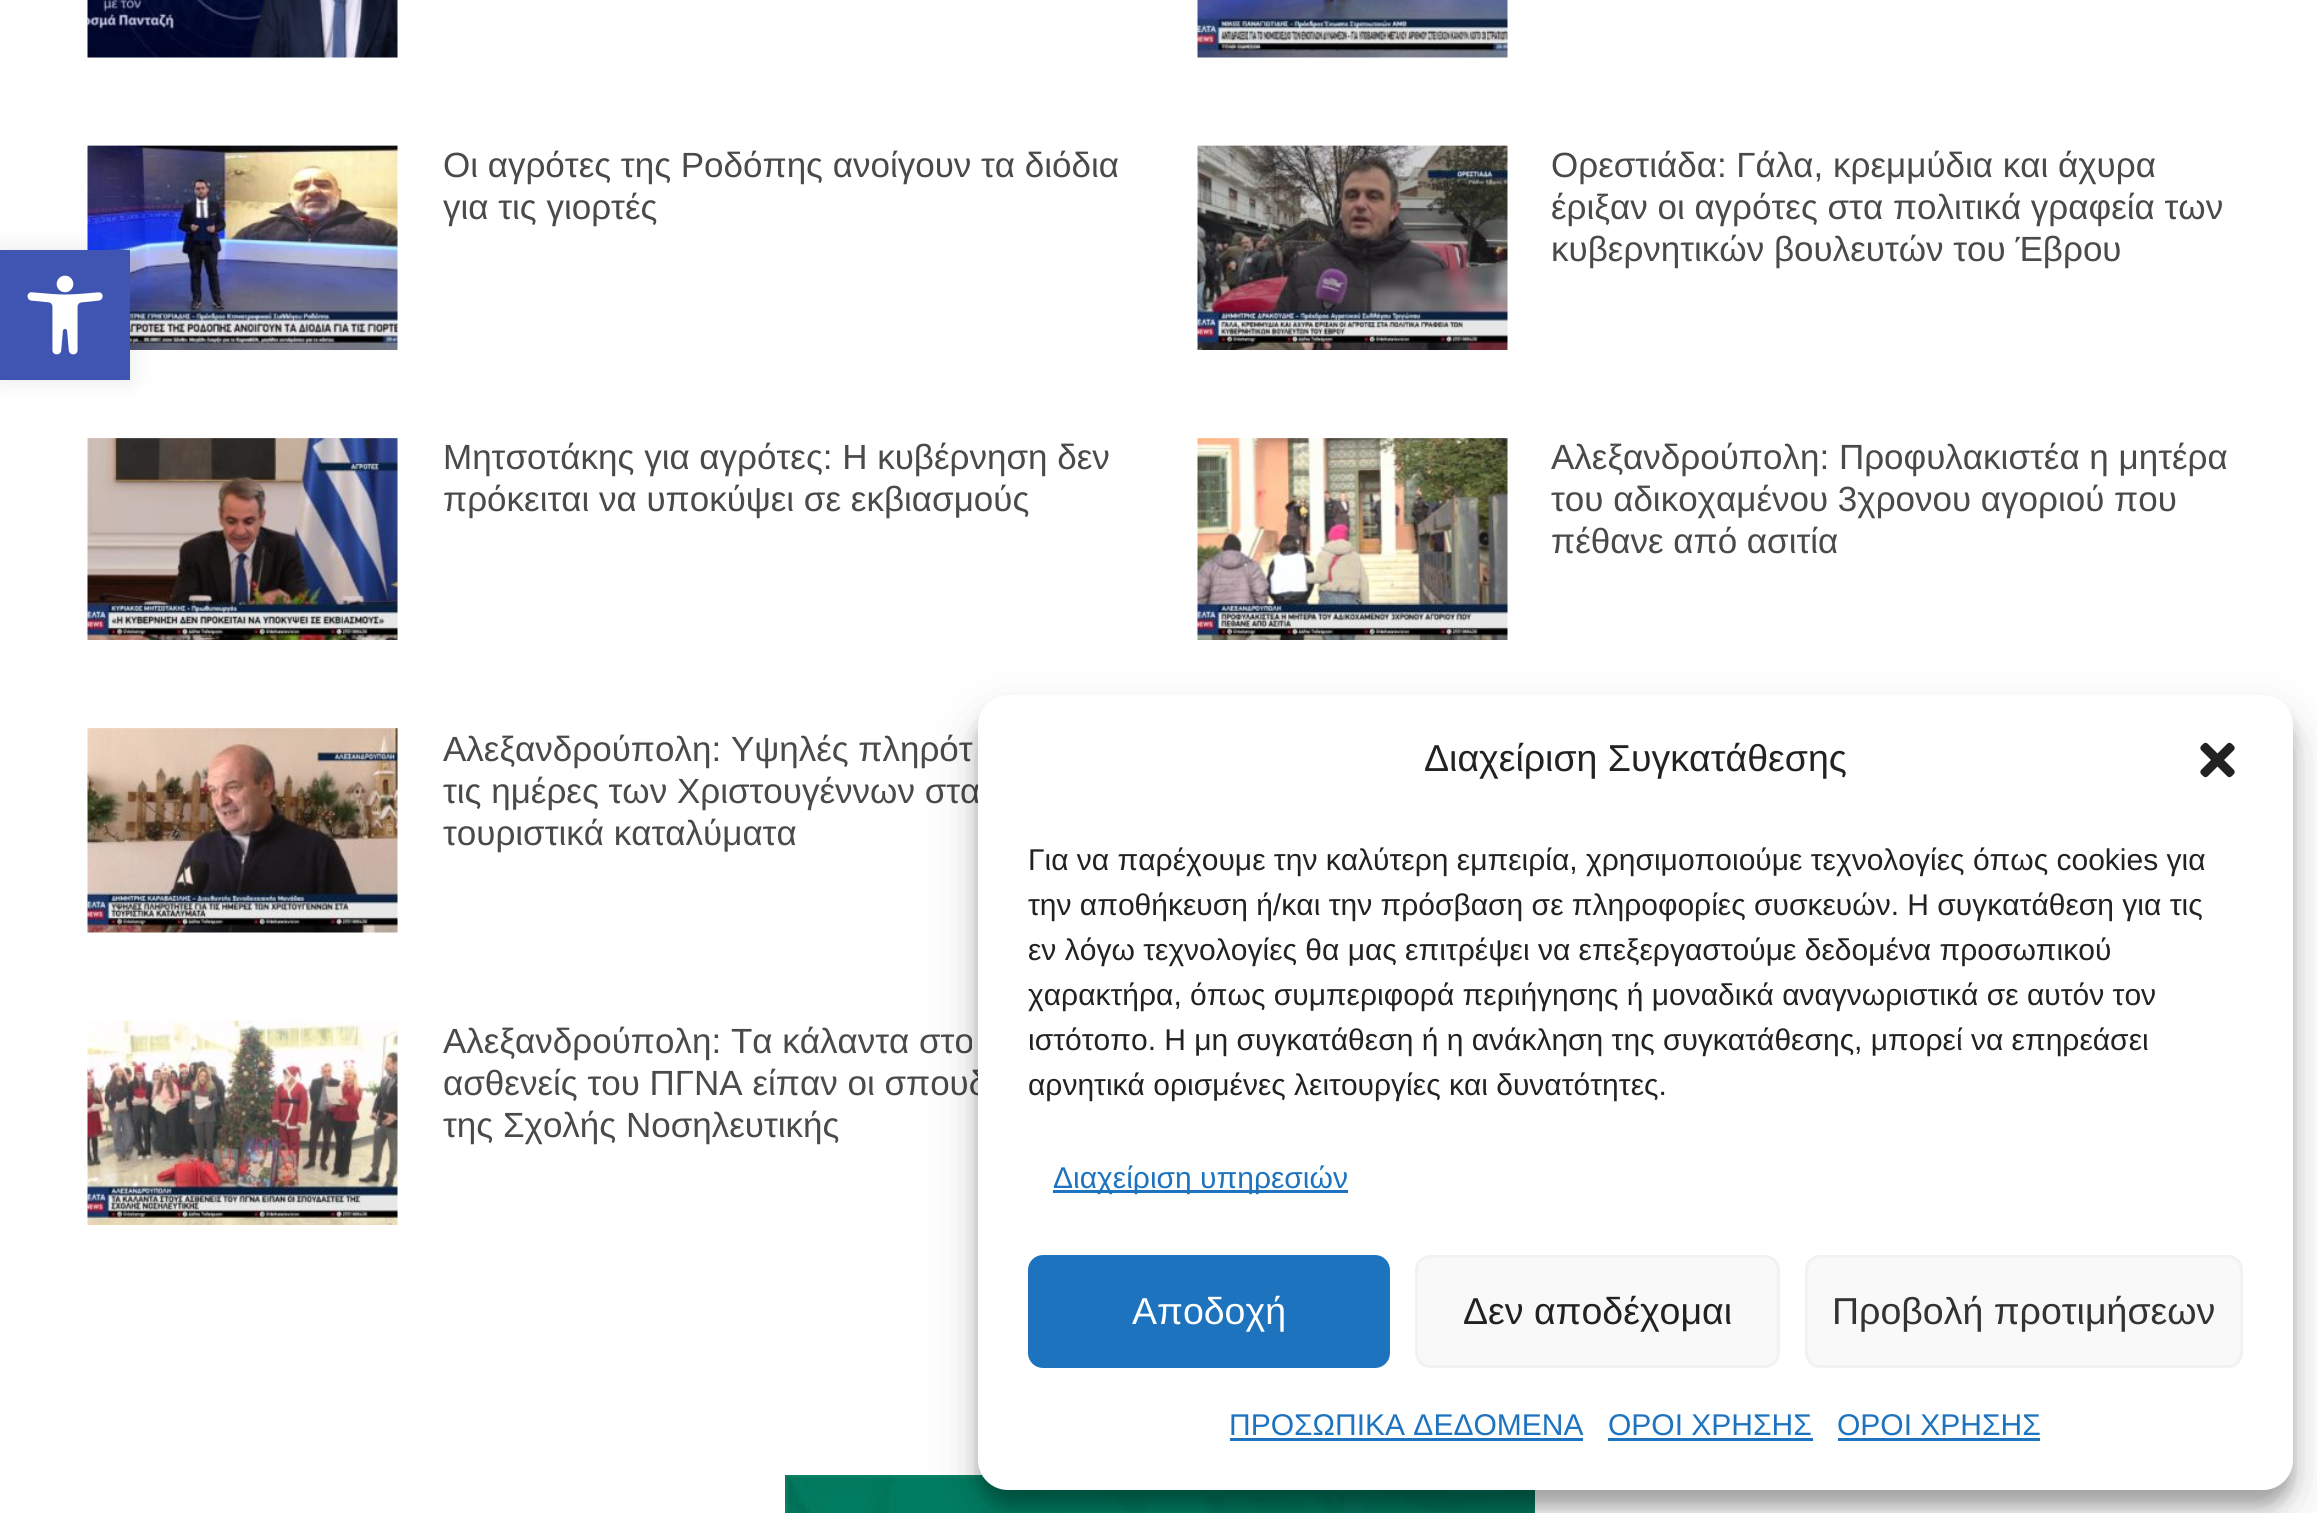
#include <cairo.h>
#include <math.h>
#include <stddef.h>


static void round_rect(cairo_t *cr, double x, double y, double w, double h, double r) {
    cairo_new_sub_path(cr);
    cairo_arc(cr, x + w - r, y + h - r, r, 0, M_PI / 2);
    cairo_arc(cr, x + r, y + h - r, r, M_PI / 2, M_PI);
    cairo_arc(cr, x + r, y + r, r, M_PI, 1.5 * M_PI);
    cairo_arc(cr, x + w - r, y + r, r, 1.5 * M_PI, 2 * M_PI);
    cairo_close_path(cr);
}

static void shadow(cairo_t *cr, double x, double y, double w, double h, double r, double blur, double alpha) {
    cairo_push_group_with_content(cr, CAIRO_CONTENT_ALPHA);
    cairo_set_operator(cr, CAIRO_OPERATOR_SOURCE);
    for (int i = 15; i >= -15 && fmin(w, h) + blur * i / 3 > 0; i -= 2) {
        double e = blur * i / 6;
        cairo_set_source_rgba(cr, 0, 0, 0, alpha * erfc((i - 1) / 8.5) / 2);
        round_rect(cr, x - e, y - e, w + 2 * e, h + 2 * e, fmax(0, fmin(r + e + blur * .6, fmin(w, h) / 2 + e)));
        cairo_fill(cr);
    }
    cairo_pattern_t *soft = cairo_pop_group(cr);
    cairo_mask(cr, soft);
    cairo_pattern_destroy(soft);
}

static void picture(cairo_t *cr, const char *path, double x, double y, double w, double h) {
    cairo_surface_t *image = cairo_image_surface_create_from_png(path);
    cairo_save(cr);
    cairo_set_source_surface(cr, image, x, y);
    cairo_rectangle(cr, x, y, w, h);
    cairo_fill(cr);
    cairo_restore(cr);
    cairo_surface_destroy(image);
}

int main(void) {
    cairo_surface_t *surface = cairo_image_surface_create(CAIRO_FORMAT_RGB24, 2317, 1513);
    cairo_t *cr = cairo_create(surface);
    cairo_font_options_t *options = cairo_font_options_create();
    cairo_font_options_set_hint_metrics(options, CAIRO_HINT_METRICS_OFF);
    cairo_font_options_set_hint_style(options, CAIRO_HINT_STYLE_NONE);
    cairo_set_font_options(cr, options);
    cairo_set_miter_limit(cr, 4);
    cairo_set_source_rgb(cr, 1, 1, 1);
    cairo_paint(cr);
    picture(cr, "img4.png", 87, 145, 311, 205);
    cairo_set_source_rgb(cr, 0, 0, 0);
    shadow(cr, 0, 250, 130, 130, 0, 12.5, 0.1);
    cairo_set_source_rgb(cr, 0.251, 0.329, 0.698);
    cairo_rectangle(cr, 0, 250, 130, 130);
    cairo_fill(cr);
    picture(cr, "img1.png", 27, 275, 76, 80);
    picture(cr, "img2.png", 87, 0, 311, 58);
    picture(cr, "img3.png", 1197, 0, 311, 58);
    cairo_select_font_face(cr, "Liberation Sans", CAIRO_FONT_SLANT_NORMAL, CAIRO_FONT_WEIGHT_NORMAL);
    cairo_set_font_size(cr, 35);
    cairo_set_source_rgb(cr, 0.29, 0.29, 0.29);
    cairo_move_to(cr, 443, 177);
    cairo_show_text(cr, "Οι αγρότες της Ροδόπης ανοίγουν τα διόδια");
    cairo_move_to(cr, 443, 219);
    cairo_show_text(cr, "για τις γιορτές");
    picture(cr, "img5.png", 1197, 145, 311, 205);
    cairo_move_to(cr, 1551, 177);
    cairo_show_text(cr, "Ορεστιάδα: Γάλα, κρεμμύδια και άχυρα");
    cairo_move_to(cr, 1551, 219);
    cairo_show_text(cr, "έριξαν οι αγρότες στα πολιτικά γραφεία των");
    cairo_move_to(cr, 1551, 261);
    cairo_show_text(cr, "κυβερνητικών βουλευτών του Έβρου");
    picture(cr, "img6.png", 87, 438, 311, 202);
    cairo_move_to(cr, 443, 469);
    cairo_show_text(cr, "Μητσοτάκης για αγρότες: Η κυβέρνηση δεν");
    cairo_move_to(cr, 443, 511);
    cairo_show_text(cr, "πρόκειται να υποκύψει σε εκβιασμούς");
    picture(cr, "img7.png", 1197, 438, 311, 202);
    cairo_move_to(cr, 1551, 469);
    cairo_show_text(cr, "Αλεξανδρούπολη: Προφυλακιστέα η μητέρα");
    cairo_move_to(cr, 1551, 511);
    cairo_show_text(cr, "του αδικοχαμένου 3χρονου αγοριού που");
    cairo_move_to(cr, 1551, 553);
    cairo_show_text(cr, "πέθανε από ασιτία");
    picture(cr, "img8.png", 87, 728, 311, 205);
    cairo_move_to(cr, 443, 761);
    cairo_show_text(cr, "Αλεξανδρούπολη: Υψηλές πληρότ");
    cairo_move_to(cr, 443, 803);
    cairo_show_text(cr, "τις ημέρες των Χριστουγέννων στα");
    cairo_move_to(cr, 443, 845);
    cairo_show_text(cr, "τουριστικά καταλύματα");
    picture(cr, "img9.png", 87, 1020, 311, 205);
    cairo_move_to(cr, 443, 1053);
    cairo_show_text(cr, "Αλεξανδρούπολη: Τα κάλαντα στο");
    cairo_move_to(cr, 443, 1095);
    cairo_show_text(cr, "ασθενείς του ΠΓΝΑ είπαν οι σπουδ");
    cairo_move_to(cr, 443, 1137);
    cairo_show_text(cr, "της Σχολής Νοσηλευτικής");
    picture(cr, "img10.png", 785, 1475, 750, 38);
    cairo_set_source_rgb(cr, 0, 0, 0);
    shadow(cr, 978, 710, 1315, 795, 30, 7.5, 0.23);
    shadow(cr, 978, 720, 1315, 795, 30, 25, 0.19);
    cairo_set_source_rgb(cr, 1, 1, 1);
    round_rect(cr, 978, 695, 1315, 795, 30);
    cairo_fill(cr);
    cairo_set_font_size(cr, 37.5);
    cairo_set_source_rgb(cr, 0.133, 0.133, 0.133);
    cairo_move_to(cr, 1424, 771);
    cairo_show_text(cr, "Διαχείριση Συγκατάθεσης");
    picture(cr, "img11.png", 2200, 742, 35, 36);
    cairo_set_font_size(cr, 30);
    cairo_move_to(cr, 1028, 870);
    cairo_show_text(cr, "Για να παρέχουμε την καλύτερη εμπειρία, χρησιμοποιούμε τεχνολογίες όπως cookies για");
    cairo_move_to(cr, 1028, 915);
    cairo_show_text(cr, "την αποθήκευση ή/και την πρόσβαση σε πληροφορίες συσκευών. Η συγκατάθεση για τις");
    cairo_move_to(cr, 1028, 960);
    cairo_show_text(cr, "εν λόγω τεχνολογίες θα μας επιτρέψει να επεξεργαστούμε δεδομένα προσωπικού");
    cairo_move_to(cr, 1028, 1005);
    cairo_show_text(cr, "χαρακτήρα, όπως συμπεριφορά περιήγησης ή μοναδικά αναγνωριστικά σε αυτόν τον");
    cairo_move_to(cr, 1028, 1050);
    cairo_show_text(cr, "ιστότοπο. Η μη συγκατάθεση ή η ανάκληση της συγκατάθεσης, μπορεί να επηρεάσει");
    cairo_move_to(cr, 1028, 1095);
    cairo_show_text(cr, "αρνητικά ορισμένες λειτουργίες και δυνατότητες.");
    cairo_set_source_rgb(cr, 0.118, 0.451, 0.745);
    cairo_rectangle(cr, 1053, 1190, 295, 3);
    cairo_fill(cr);
    cairo_move_to(cr, 1053, 1188);
    cairo_show_text(cr, "Διαχείριση υπηρεσιών");
    round_rect(cr, 1029.5, 1256.5, 359, 110, 13.5);
    cairo_fill_preserve(cr);
    cairo_set_line_width(cr, 3);
    cairo_stroke(cr);
    cairo_set_font_size(cr, 37.5);
    cairo_set_source_rgb(cr, 1, 1, 1);
    cairo_move_to(cr, 1132, 1324);
    cairo_show_text(cr, "Αποδοχή");
    cairo_set_source_rgb(cr, 0.976, 0.976, 0.976);
    round_rect(cr, 1416.5, 1256.5, 362, 110, 13.5);
    cairo_fill_preserve(cr);
    cairo_set_source_rgb(cr, 0.949, 0.949, 0.949);
    cairo_stroke(cr);
    cairo_set_source_rgb(cr, 0.133, 0.133, 0.133);
    cairo_move_to(cr, 1463, 1324);
    cairo_show_text(cr, "Δεν αποδέχομαι");
    cairo_set_source_rgb(cr, 0.976, 0.976, 0.976);
    round_rect(cr, 1806.5, 1256.5, 435, 110, 13.5);
    cairo_fill_preserve(cr);
    cairo_set_source_rgb(cr, 0.949, 0.949, 0.949);
    cairo_stroke(cr);
    cairo_set_source_rgb(cr, 0.2, 0.2, 0.2);
    cairo_move_to(cr, 1832, 1324);
    cairo_show_text(cr, "Προβολή προτιμήσεων");
    cairo_set_font_size(cr, 30);
    cairo_set_source_rgb(cr, 0.118, 0.451, 0.745);
    cairo_move_to(cr, 1229, 1435);
    cairo_show_text(cr, "ΠΡΟΣΩΠΙΚΑ ΔΕΔΟΜΕΝΑ");
    cairo_rectangle(cr, 1230, 1438, 353, 3);
    cairo_fill(cr);
    cairo_move_to(cr, 1608, 1435);
    cairo_show_text(cr, "ΟΡΟΙ ΧΡΗΣΗΣ");
    cairo_rectangle(cr, 1608, 1438, 205, 3);
    cairo_fill(cr);
    cairo_move_to(cr, 1837, 1435);
    cairo_show_text(cr, "ΟΡΟΙ ΧΡΗΣΗΣ");
    cairo_rectangle(cr, 1838, 1438, 202, 3);
    cairo_fill(cr);
    cairo_surface_write_to_png(surface, "page.png");
    cairo_font_options_destroy(options);
    cairo_destroy(cr);
    cairo_surface_destroy(surface);
    return 0;
}
